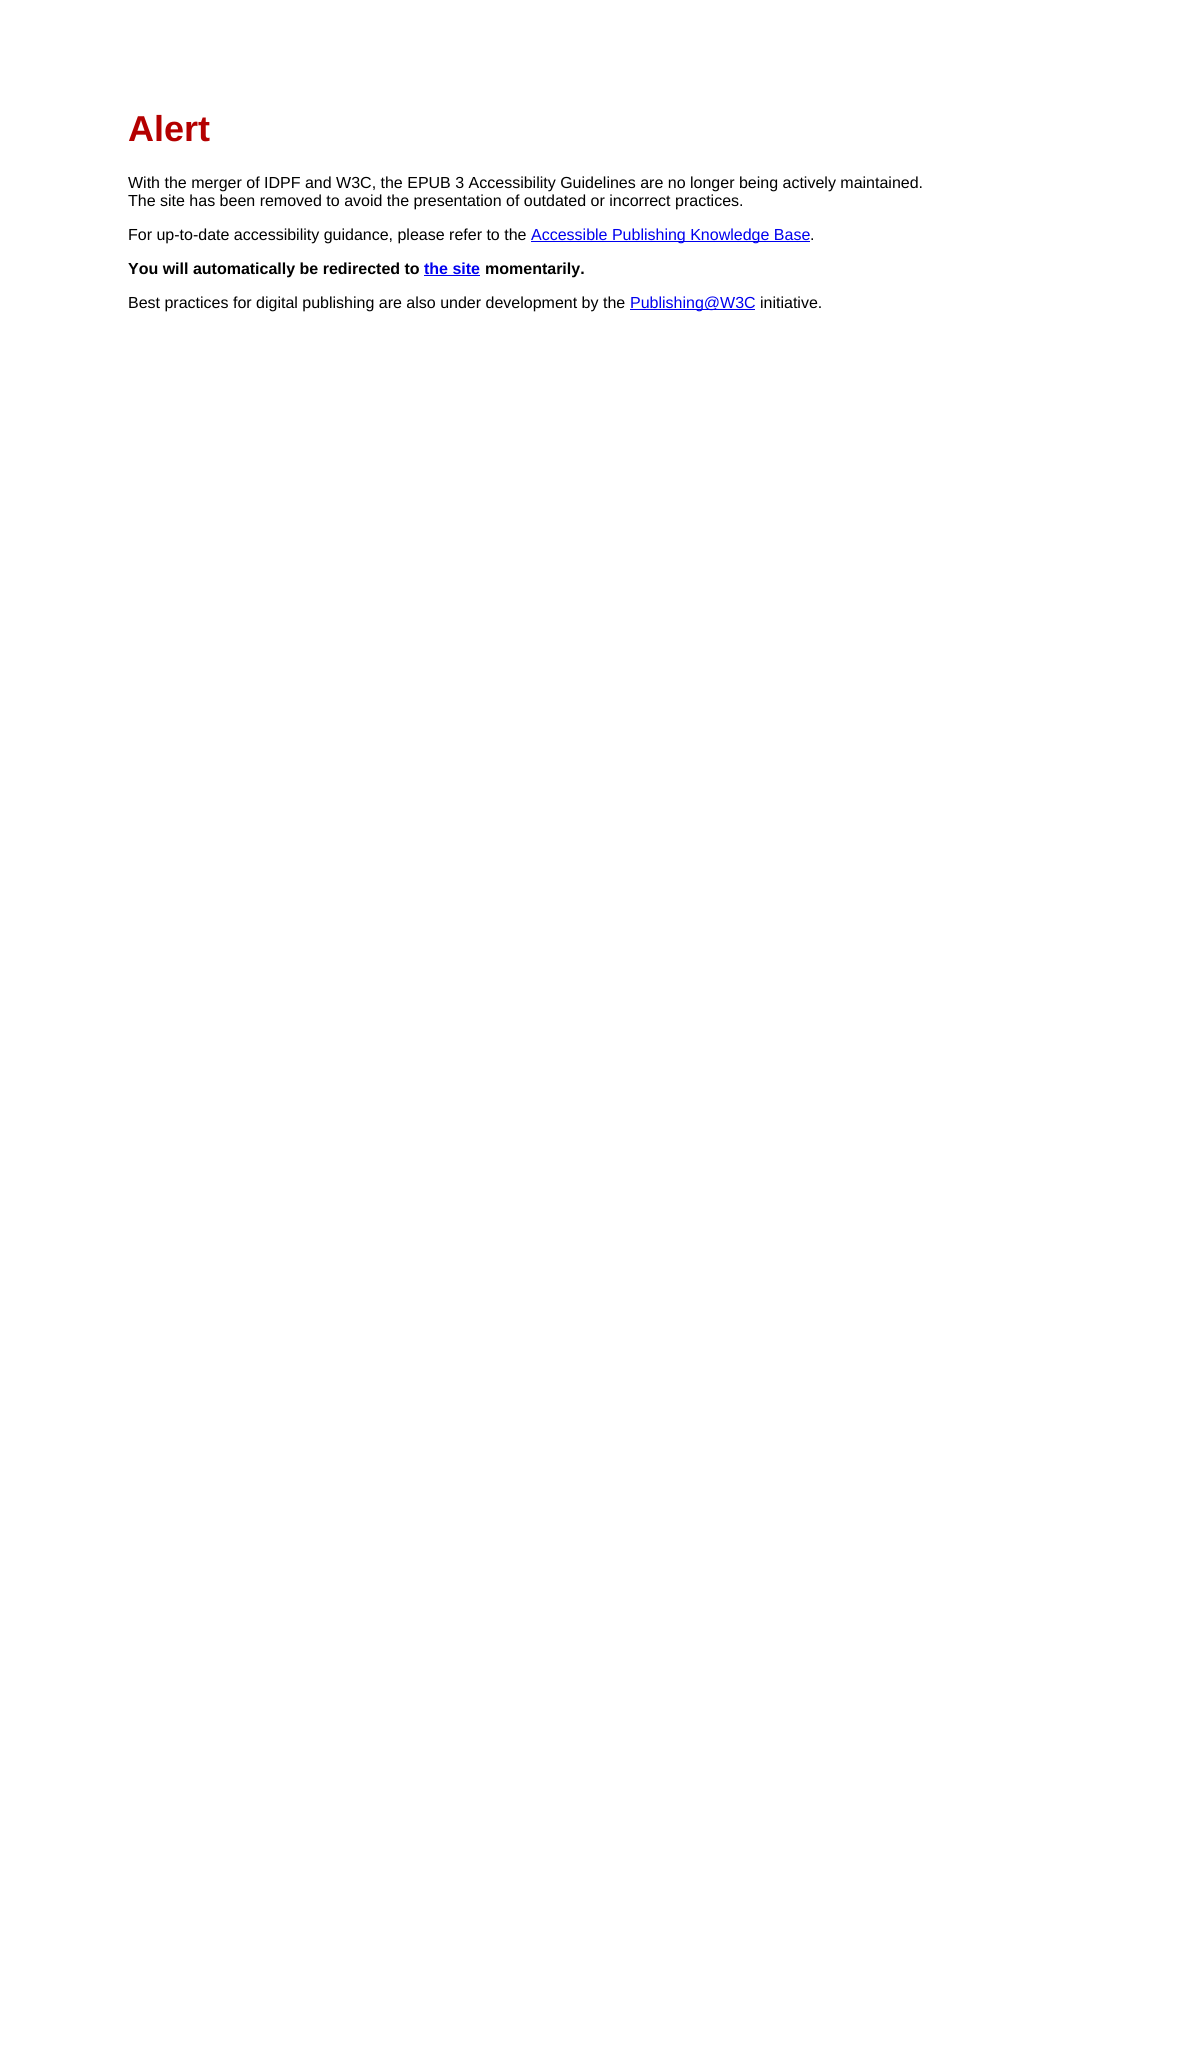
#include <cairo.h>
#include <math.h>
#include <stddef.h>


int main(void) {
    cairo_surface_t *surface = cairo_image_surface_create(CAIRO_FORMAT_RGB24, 1189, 2065);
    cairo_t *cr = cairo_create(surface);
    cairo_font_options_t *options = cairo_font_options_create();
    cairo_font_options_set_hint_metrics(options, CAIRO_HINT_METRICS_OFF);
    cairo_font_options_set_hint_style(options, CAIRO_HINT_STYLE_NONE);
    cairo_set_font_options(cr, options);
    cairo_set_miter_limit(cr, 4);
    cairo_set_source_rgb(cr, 1, 1, 1);
    cairo_paint(cr);
    cairo_select_font_face(cr, "Liberation Sans", CAIRO_FONT_SLANT_NORMAL, CAIRO_FONT_WEIGHT_BOLD);
    cairo_set_font_size(cr, 36);
    cairo_set_source_rgb(cr, 0.706, 0, 0);
    cairo_move_to(cr, 128, 141);
    cairo_show_text(cr, "Alert");
    cairo_select_font_face(cr, "Liberation Sans", CAIRO_FONT_SLANT_NORMAL, CAIRO_FONT_WEIGHT_NORMAL);
    cairo_set_font_size(cr, 16);
    cairo_set_source_rgb(cr, 0, 0, 0);
    cairo_move_to(cr, 128, 188);
    cairo_show_text(cr, "With the merger of IDPF and W3C, the EPUB 3 Accessibility Guidelines are no longer being actively maintained.");
    cairo_move_to(cr, 128, 206);
    cairo_show_text(cr, "The site has been removed to avoid the presentation of outdated or incorrect practices.");
    cairo_move_to(cr, 128, 240);
    cairo_show_text(cr, "For up-to-date accessibility guidance, please refer to the");
    cairo_set_source_rgb(cr, 0, 0, 0.933);
    cairo_rectangle(cr, 531, 241, 279, 1);
    cairo_fill(cr);
    cairo_move_to(cr, 531, 240);
    cairo_show_text(cr, "Accessible Publishing Knowledge Base");
    cairo_set_source_rgb(cr, 0, 0, 0);
    cairo_move_to(cr, 810, 240);
    cairo_show_text(cr, ".");
    cairo_select_font_face(cr, "Liberation Sans", CAIRO_FONT_SLANT_NORMAL, CAIRO_FONT_WEIGHT_BOLD);
    cairo_move_to(cr, 128, 274);
    cairo_show_text(cr, "You will automatically be redirected to");
    cairo_set_source_rgb(cr, 0, 0, 0.933);
    cairo_move_to(cr, 424, 274);
    cairo_show_text(cr, "the site");
    cairo_rectangle(cr, 424, 275, 56, 1);
    cairo_fill(cr);
    cairo_set_source_rgb(cr, 0, 0, 0);
    cairo_move_to(cr, 485, 274);
    cairo_show_text(cr, "momentarily.");
    cairo_select_font_face(cr, "Liberation Sans", CAIRO_FONT_SLANT_NORMAL, CAIRO_FONT_WEIGHT_NORMAL);
    cairo_move_to(cr, 128, 308);
    cairo_show_text(cr, "Best practices for digital publishing are also under development by the");
    cairo_set_source_rgb(cr, 0, 0, 0.933);
    cairo_rectangle(cr, 630, 309, 125, 1);
    cairo_fill(cr);
    cairo_move_to(cr, 630, 308);
    cairo_show_text(cr, "Publishing@W3C");
    cairo_set_source_rgb(cr, 0, 0, 0);
    cairo_move_to(cr, 760, 308);
    cairo_show_text(cr, "initiative.");
    cairo_surface_write_to_png(surface, "page.png");
    cairo_font_options_destroy(options);
    cairo_destroy(cr);
    cairo_surface_destroy(surface);
    return 0;
}
